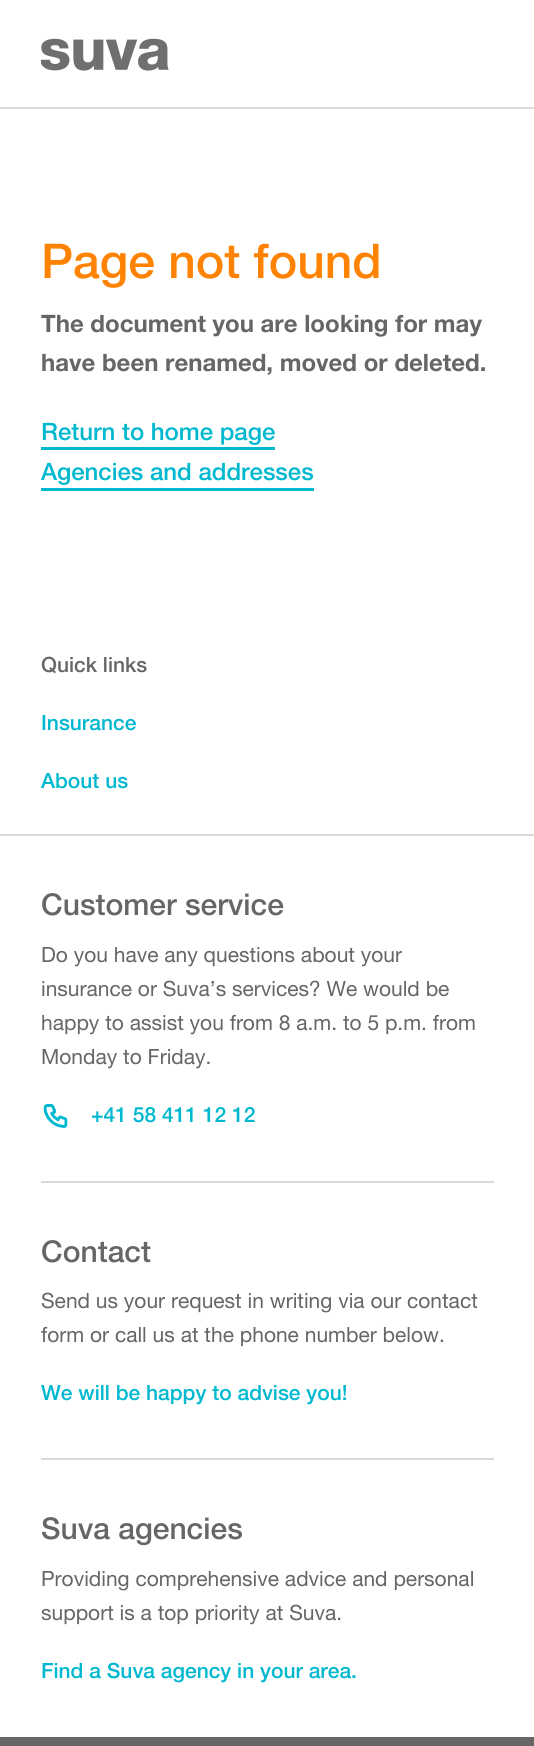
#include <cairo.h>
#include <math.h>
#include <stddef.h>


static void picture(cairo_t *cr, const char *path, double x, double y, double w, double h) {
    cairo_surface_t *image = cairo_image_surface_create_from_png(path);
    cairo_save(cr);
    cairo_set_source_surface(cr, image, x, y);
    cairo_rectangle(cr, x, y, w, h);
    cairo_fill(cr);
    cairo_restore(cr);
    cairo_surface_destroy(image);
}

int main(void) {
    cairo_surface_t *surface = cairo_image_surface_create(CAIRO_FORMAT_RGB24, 534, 1746);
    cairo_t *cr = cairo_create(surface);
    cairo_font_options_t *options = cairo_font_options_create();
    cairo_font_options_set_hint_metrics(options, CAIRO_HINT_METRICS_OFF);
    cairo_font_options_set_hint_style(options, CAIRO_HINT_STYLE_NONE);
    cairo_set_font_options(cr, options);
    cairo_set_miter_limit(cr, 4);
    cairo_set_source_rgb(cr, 1, 1, 1);
    cairo_paint(cr);
    cairo_set_source_rgb(cr, 0.851, 0.851, 0.851);
    cairo_rectangle(cr, 0, 107, 534, 2);
    cairo_fill(cr);
    picture(cr, "img1.png", 41, 38, 128, 33);
    cairo_select_font_face(cr, "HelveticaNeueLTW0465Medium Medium", CAIRO_FONT_SLANT_NORMAL, CAIRO_FONT_WEIGHT_NORMAL);
    cairo_set_font_size(cr, 48);
    cairo_set_source_rgb(cr, 1, 0.51, 0);
    cairo_move_to(cr, 41, 278);
    cairo_show_text(cr, "Page not found");
    cairo_select_font_face(cr, "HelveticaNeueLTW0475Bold", CAIRO_FONT_SLANT_NORMAL, CAIRO_FONT_WEIGHT_BOLD);
    cairo_set_font_size(cr, 24);
    cairo_set_source_rgb(cr, 0.4, 0.4, 0.4);
    cairo_move_to(cr, 41, 332);
    cairo_show_text(cr, "The document you are looking for may");
    cairo_move_to(cr, 41, 371);
    cairo_show_text(cr, "have been renamed, moved or deleted.");
    cairo_select_font_face(cr, "HelveticaNeueLTW0465Medium Medium", CAIRO_FONT_SLANT_NORMAL, CAIRO_FONT_WEIGHT_NORMAL);
    cairo_set_source_rgb(cr, 0, 0.722, 0.812);
    cairo_move_to(cr, 41, 440);
    cairo_show_text(cr, "Return to home page");
    cairo_rectangle(cr, 41, 447, 234, 3);
    cairo_fill(cr);
    cairo_move_to(cr, 41, 480);
    cairo_show_text(cr, "Agencies and addresses");
    cairo_rectangle(cr, 41, 488, 273, 3);
    cairo_fill(cr);
    cairo_set_source_rgb(cr, 0.851, 0.851, 0.851);
    cairo_rectangle(cr, 0, 834, 534, 2);
    cairo_fill(cr);
    cairo_set_font_size(cr, 21);
    cairo_set_source_rgb(cr, 0.4, 0.4, 0.4);
    cairo_move_to(cr, 41, 672);
    cairo_show_text(cr, "Quick links");
    cairo_set_source_rgb(cr, 0, 0.722, 0.812);
    cairo_move_to(cr, 41, 730);
    cairo_show_text(cr, "Insurance");
    cairo_move_to(cr, 41, 788);
    cairo_show_text(cr, "About us");
    cairo_set_font_size(cr, 30);
    cairo_set_source_rgb(cr, 0.4, 0.4, 0.4);
    cairo_move_to(cr, 41, 915);
    cairo_show_text(cr, "Customer service");
    cairo_select_font_face(cr, "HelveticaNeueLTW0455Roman", CAIRO_FONT_SLANT_NORMAL, CAIRO_FONT_WEIGHT_NORMAL);
    cairo_set_font_size(cr, 21);
    cairo_move_to(cr, 41, 962);
    cairo_show_text(cr, "Do you have any questions about your");
    cairo_move_to(cr, 41, 996);
    cairo_show_text(cr, "insurance or Suva’s services? We would be");
    cairo_move_to(cr, 41, 1030);
    cairo_show_text(cr, "happy to assist you from 8 a.m. to 5 p.m. from");
    cairo_move_to(cr, 41, 1064);
    cairo_show_text(cr, "Monday to Friday.");
    picture(cr, "img2.png", 43, 1104, 25, 24);
    cairo_select_font_face(cr, "HelveticaNeueLTW0465Medium Medium", CAIRO_FONT_SLANT_NORMAL, CAIRO_FONT_WEIGHT_NORMAL);
    cairo_set_source_rgb(cr, 0, 0.722, 0.812);
    cairo_move_to(cr, 91, 1122);
    cairo_show_text(cr, "+41 58 411 12 12");
    cairo_set_source_rgb(cr, 0.851, 0.851, 0.851);
    cairo_rectangle(cr, 41, 1181, 453, 2);
    cairo_fill(cr);
    cairo_set_font_size(cr, 30);
    cairo_set_source_rgb(cr, 0.4, 0.4, 0.4);
    cairo_move_to(cr, 41, 1262);
    cairo_show_text(cr, "Contact");
    cairo_select_font_face(cr, "HelveticaNeueLTW0455Roman", CAIRO_FONT_SLANT_NORMAL, CAIRO_FONT_WEIGHT_NORMAL);
    cairo_set_font_size(cr, 21);
    cairo_move_to(cr, 41, 1308);
    cairo_show_text(cr, "Send us your request in writing via our contact");
    cairo_move_to(cr, 41, 1342);
    cairo_show_text(cr, "form or call us at the phone number below.");
    cairo_select_font_face(cr, "HelveticaNeueLTW0465Medium Medium", CAIRO_FONT_SLANT_NORMAL, CAIRO_FONT_WEIGHT_NORMAL);
    cairo_set_source_rgb(cr, 0, 0.722, 0.812);
    cairo_move_to(cr, 41, 1400);
    cairo_show_text(cr, "We will be happy to advise you!");
    cairo_set_source_rgb(cr, 0.851, 0.851, 0.851);
    cairo_rectangle(cr, 41, 1458, 453, 2);
    cairo_fill(cr);
    cairo_set_font_size(cr, 30);
    cairo_set_source_rgb(cr, 0.4, 0.4, 0.4);
    cairo_move_to(cr, 41, 1539);
    cairo_show_text(cr, "Suva agencies");
    cairo_select_font_face(cr, "HelveticaNeueLTW0455Roman", CAIRO_FONT_SLANT_NORMAL, CAIRO_FONT_WEIGHT_NORMAL);
    cairo_set_font_size(cr, 21);
    cairo_move_to(cr, 41, 1586);
    cairo_show_text(cr, "Providing comprehensive advice and personal");
    cairo_move_to(cr, 41, 1620);
    cairo_show_text(cr, "support is a top priority at Suva.");
    cairo_select_font_face(cr, "HelveticaNeueLTW0465Medium Medium", CAIRO_FONT_SLANT_NORMAL, CAIRO_FONT_WEIGHT_NORMAL);
    cairo_set_source_rgb(cr, 0, 0.722, 0.812);
    cairo_move_to(cr, 41, 1678);
    cairo_show_text(cr, "Find a Suva agency in your area.");
    cairo_set_source_rgb(cr, 0.4, 0.4, 0.4);
    cairo_rectangle(cr, 0, 1737, 534, 9);
    cairo_fill(cr);
    cairo_surface_write_to_png(surface, "page.png");
    cairo_font_options_destroy(options);
    cairo_destroy(cr);
    cairo_surface_destroy(surface);
    return 0;
}
